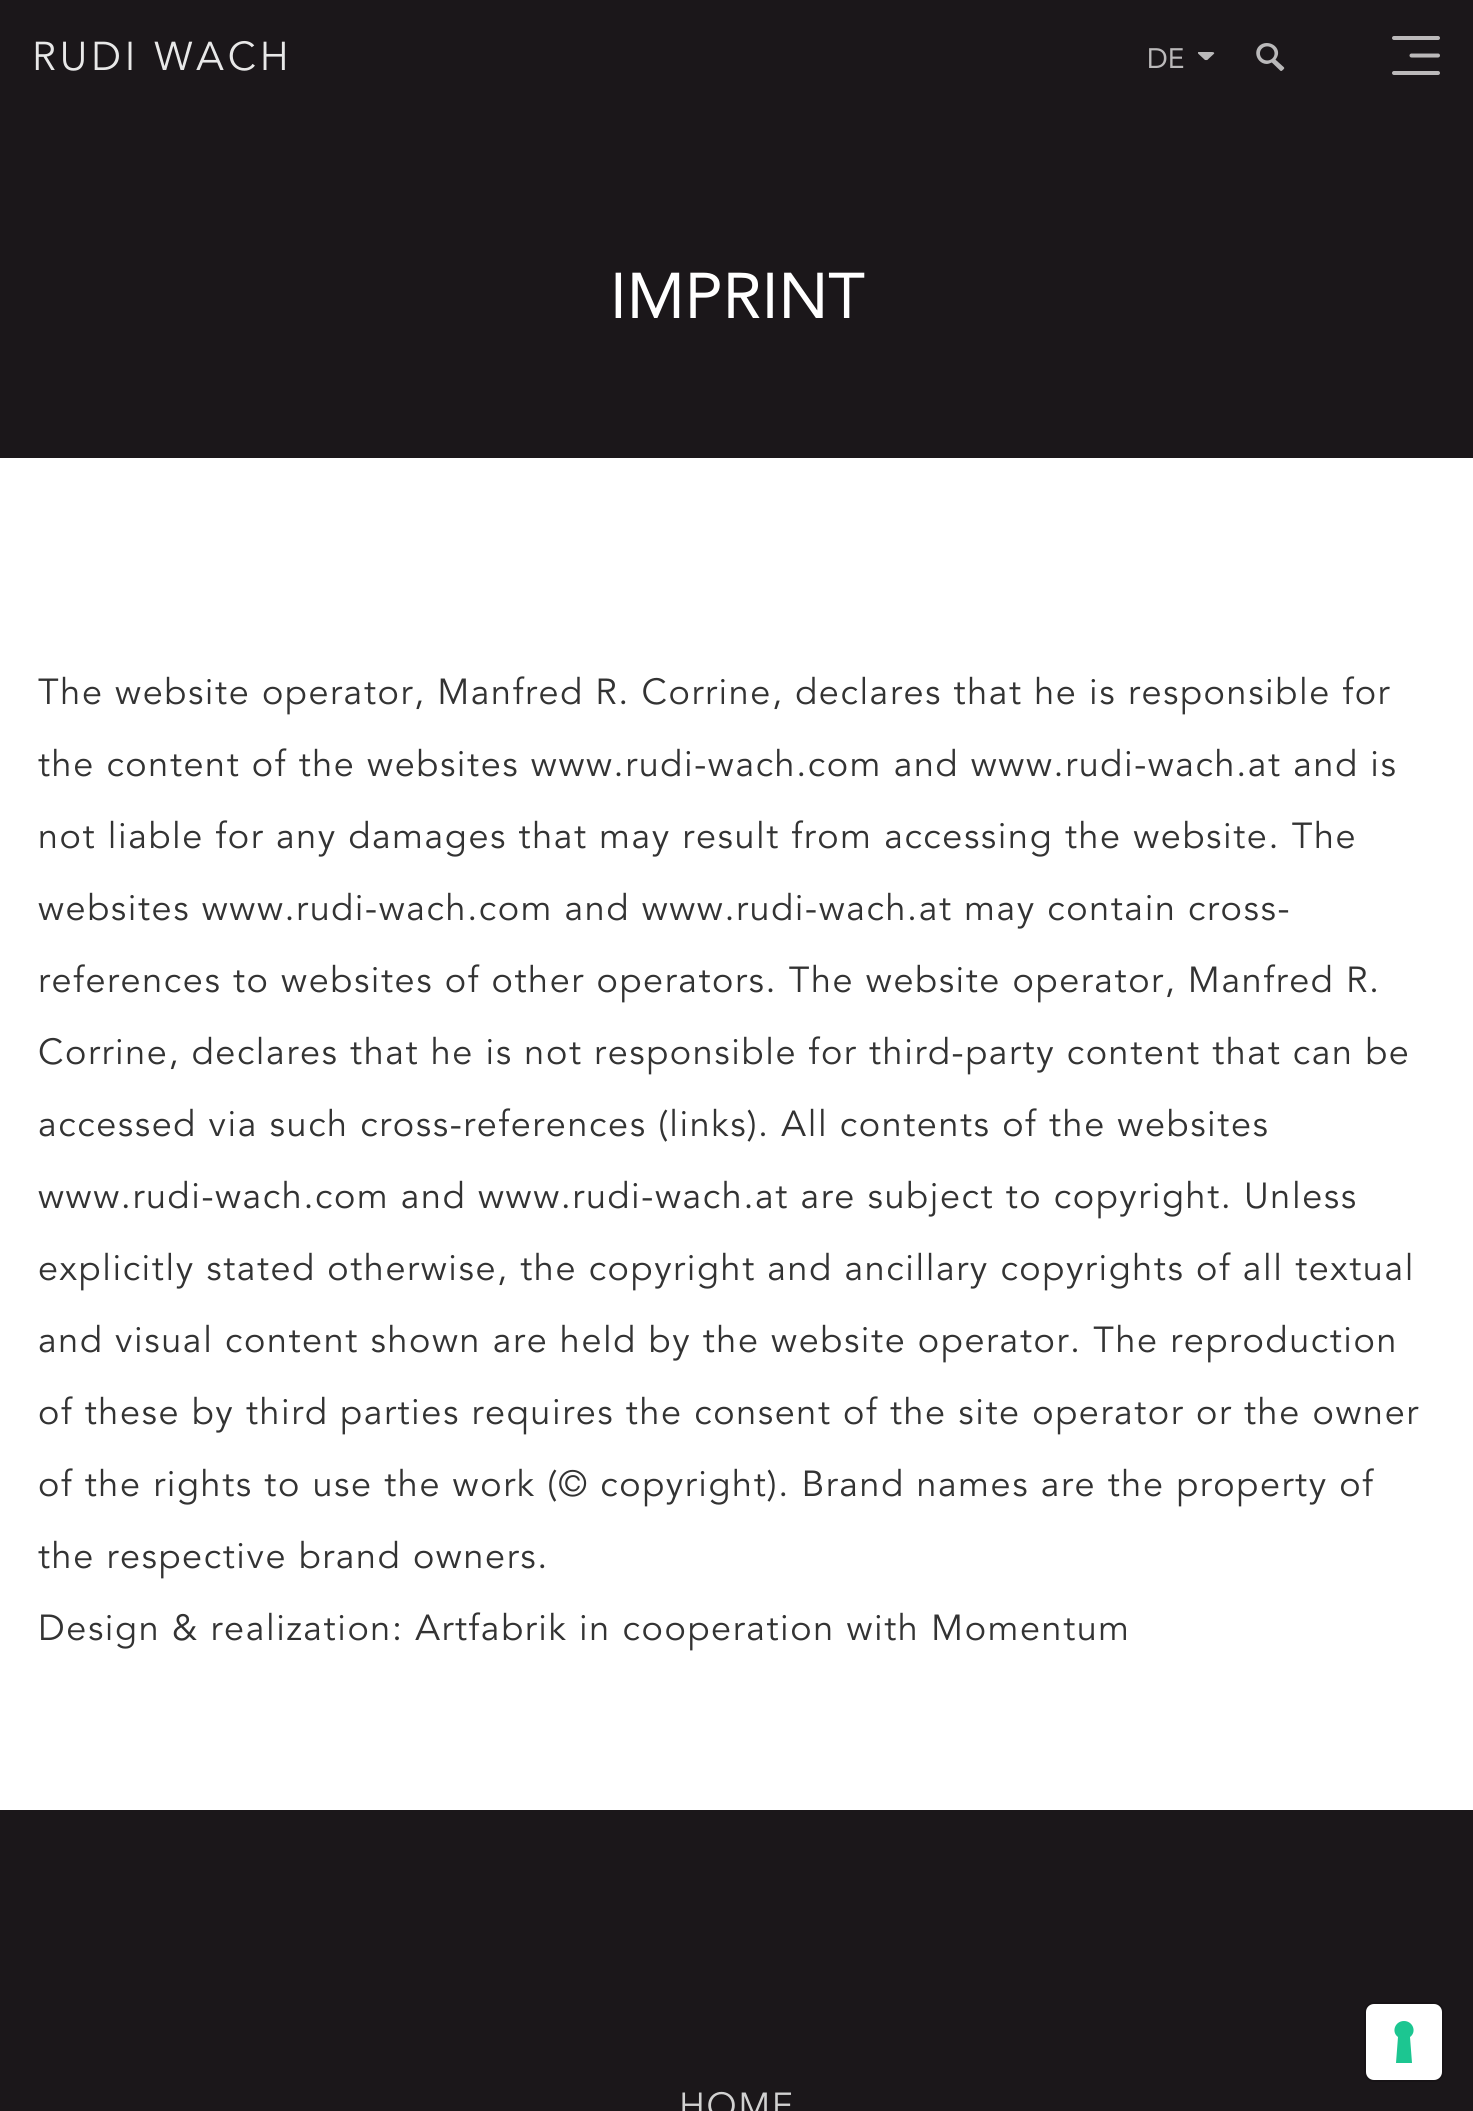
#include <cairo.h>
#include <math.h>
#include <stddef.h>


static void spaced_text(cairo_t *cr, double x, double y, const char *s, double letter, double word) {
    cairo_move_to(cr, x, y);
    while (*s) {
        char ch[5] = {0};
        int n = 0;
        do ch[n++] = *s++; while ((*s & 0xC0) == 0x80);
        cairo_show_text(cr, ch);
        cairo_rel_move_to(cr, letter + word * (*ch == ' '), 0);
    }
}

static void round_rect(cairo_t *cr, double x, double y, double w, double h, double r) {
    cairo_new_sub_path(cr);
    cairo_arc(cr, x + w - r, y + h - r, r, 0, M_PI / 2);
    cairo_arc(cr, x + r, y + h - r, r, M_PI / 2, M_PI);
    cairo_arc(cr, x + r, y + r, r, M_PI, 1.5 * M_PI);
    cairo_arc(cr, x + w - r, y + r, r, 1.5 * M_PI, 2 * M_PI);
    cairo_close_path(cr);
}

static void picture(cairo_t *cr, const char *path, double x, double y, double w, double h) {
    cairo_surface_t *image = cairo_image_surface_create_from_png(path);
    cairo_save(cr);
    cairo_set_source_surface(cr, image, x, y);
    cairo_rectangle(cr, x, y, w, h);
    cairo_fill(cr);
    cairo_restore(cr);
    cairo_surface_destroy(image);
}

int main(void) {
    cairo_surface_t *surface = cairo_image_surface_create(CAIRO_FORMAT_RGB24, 1473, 2111);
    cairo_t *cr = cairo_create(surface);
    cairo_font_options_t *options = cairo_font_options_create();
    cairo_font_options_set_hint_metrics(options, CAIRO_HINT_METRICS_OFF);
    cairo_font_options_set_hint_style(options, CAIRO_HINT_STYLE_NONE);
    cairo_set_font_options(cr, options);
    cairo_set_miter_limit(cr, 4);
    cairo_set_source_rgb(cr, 1, 1, 1);
    cairo_paint(cr);
    cairo_set_source_rgb(cr, 0.106, 0.09, 0.102);
    cairo_rectangle(cr, 0, 0, 1473, 458);
    cairo_fill(cr);
    cairo_select_font_face(cr, "Avenir", CAIRO_FONT_SLANT_NORMAL, CAIRO_FONT_WEIGHT_NORMAL);
    cairo_set_font_size(cr, 40);
    cairo_set_source_rgb(cr, 0.91, 0.91, 0.91);
    spaced_text(cr, 32, 70, "RUDI WACH", 4, 0);
    cairo_select_font_face(cr, "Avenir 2", CAIRO_FONT_SLANT_NORMAL, CAIRO_FONT_WEIGHT_NORMAL);
    cairo_set_font_size(cr, 28);
    cairo_set_source_rgb(cr, 0.733, 0.725, 0.729);
    cairo_move_to(cr, 1147, 68);
    cairo_show_text(cr, "DE");
    picture(cr, "img1.png", 1198, 52, 17, 9);
    picture(cr, "img2.png", 1256, 43, 29, 28);
    cairo_new_path(cr);
    cairo_move_to(cr, 1394, 38);
    cairo_line_to(cr, 1438, 38);
    cairo_move_to(cr, 1411.5, 55.5);
    cairo_line_to(cr, 1438, 55.5);
    cairo_move_to(cr, 1394, 73);
    cairo_line_to(cr, 1438, 73);
    cairo_set_line_width(cr, 4);
    cairo_set_line_cap(cr, CAIRO_LINE_CAP_ROUND);
    cairo_stroke(cr);
    cairo_set_font_size(cr, 64);
    cairo_set_source_rgb(cr, 1, 1, 1);
    cairo_move_to(cr, 610, 318);
    cairo_show_text(cr, "IMPRINT");
    cairo_select_font_face(cr, "Avenir", CAIRO_FONT_SLANT_NORMAL, CAIRO_FONT_WEIGHT_NORMAL);
    cairo_set_font_size(cr, 36);
    cairo_set_source_rgb(cr, 0.2, 0.2, 0.2);
    spaced_text(cr, 38, 704, "The website operator, Manfred R. Corrine, declares that he is responsible for", 1.6, 0);
    spaced_text(cr, 38, 776, "the content of the websites www.rudi-wach.com and www.rudi-wach.at and is", 1.6, 0);
    spaced_text(cr, 38, 848, "not liable for any damages that may result from accessing the website. The", 1.6, 0);
    spaced_text(cr, 38, 920, "websites www.rudi-wach.com and www.rudi-wach.at may contain cross-", 1.6, 0);
    spaced_text(cr, 38, 992, "references to websites of other operators. The website operator, Manfred R.", 1.6, 0);
    spaced_text(cr, 38, 1064, "Corrine, declares that he is not responsible for third-party content that can be", 1.6, 0);
    spaced_text(cr, 38, 1136, "accessed via such cross-references (links). All contents of the websites", 1.6, 0);
    spaced_text(cr, 38, 1208, "www.rudi-wach.com and www.rudi-wach.at are subject to copyright. Unless", 1.6, 0);
    spaced_text(cr, 38, 1280, "explicitly stated otherwise, the copyright and ancillary copyrights of all textual", 1.6, 0);
    spaced_text(cr, 38, 1352, "and visual content shown are held by the website operator. The reproduction", 1.6, 0);
    spaced_text(cr, 38, 1424, "of these by third parties requires the consent of the site operator or the owner", 1.6, 0);
    spaced_text(cr, 38, 1496, "of the rights to use the work (© copyright). Brand names are the property of", 1.6, 0);
    spaced_text(cr, 38, 1568, "the respective brand owners.", 1.6, 0);
    spaced_text(cr, 38, 1640, "Design & realization: Artfabrik in cooperation with Momentum", 1.6, 0);
    cairo_set_source_rgb(cr, 0.106, 0.09, 0.102);
    cairo_rectangle(cr, 0, 1810, 1473, 301);
    cairo_fill(cr);
    cairo_set_source_rgb(cr, 0.82, 0.82, 0.82);
    spaced_text(cr, 679, 2118, "HOME", 1.6, 0);
    round_rect(cr, 1365, 2003, 78, 78, 9);
    cairo_set_source_rgb(cr, 0.09, 0.078, 0.086);
    cairo_set_line_width(cr, 2);
    cairo_set_line_cap(cr, CAIRO_LINE_CAP_BUTT);
    cairo_stroke(cr);
    cairo_set_source_rgb(cr, 1, 1, 1);
    round_rect(cr, 1366, 2004, 76, 76, 8);
    cairo_fill(cr);
    cairo_set_source_rgb(cr, 0.11, 0.776, 0.569);
    cairo_set_fill_rule(cr, CAIRO_FILL_RULE_EVEN_ODD);
    cairo_new_path(cr);
    cairo_move_to(cr, 1404, 2021);
    cairo_curve_to(cr, 1413, 2021, 1417, 2032, 1410, 2037);
    cairo_line_to(cr, 1412, 2063);
    cairo_line_to(cr, 1396, 2063);
    cairo_line_to(cr, 1398, 2037);
    cairo_curve_to(cr, 1391, 2032, 1395, 2021, 1404, 2021);
    cairo_close_path(cr);
    cairo_fill(cr);
    cairo_surface_write_to_png(surface, "page.png");
    cairo_font_options_destroy(options);
    cairo_destroy(cr);
    cairo_surface_destroy(surface);
    return 0;
}
